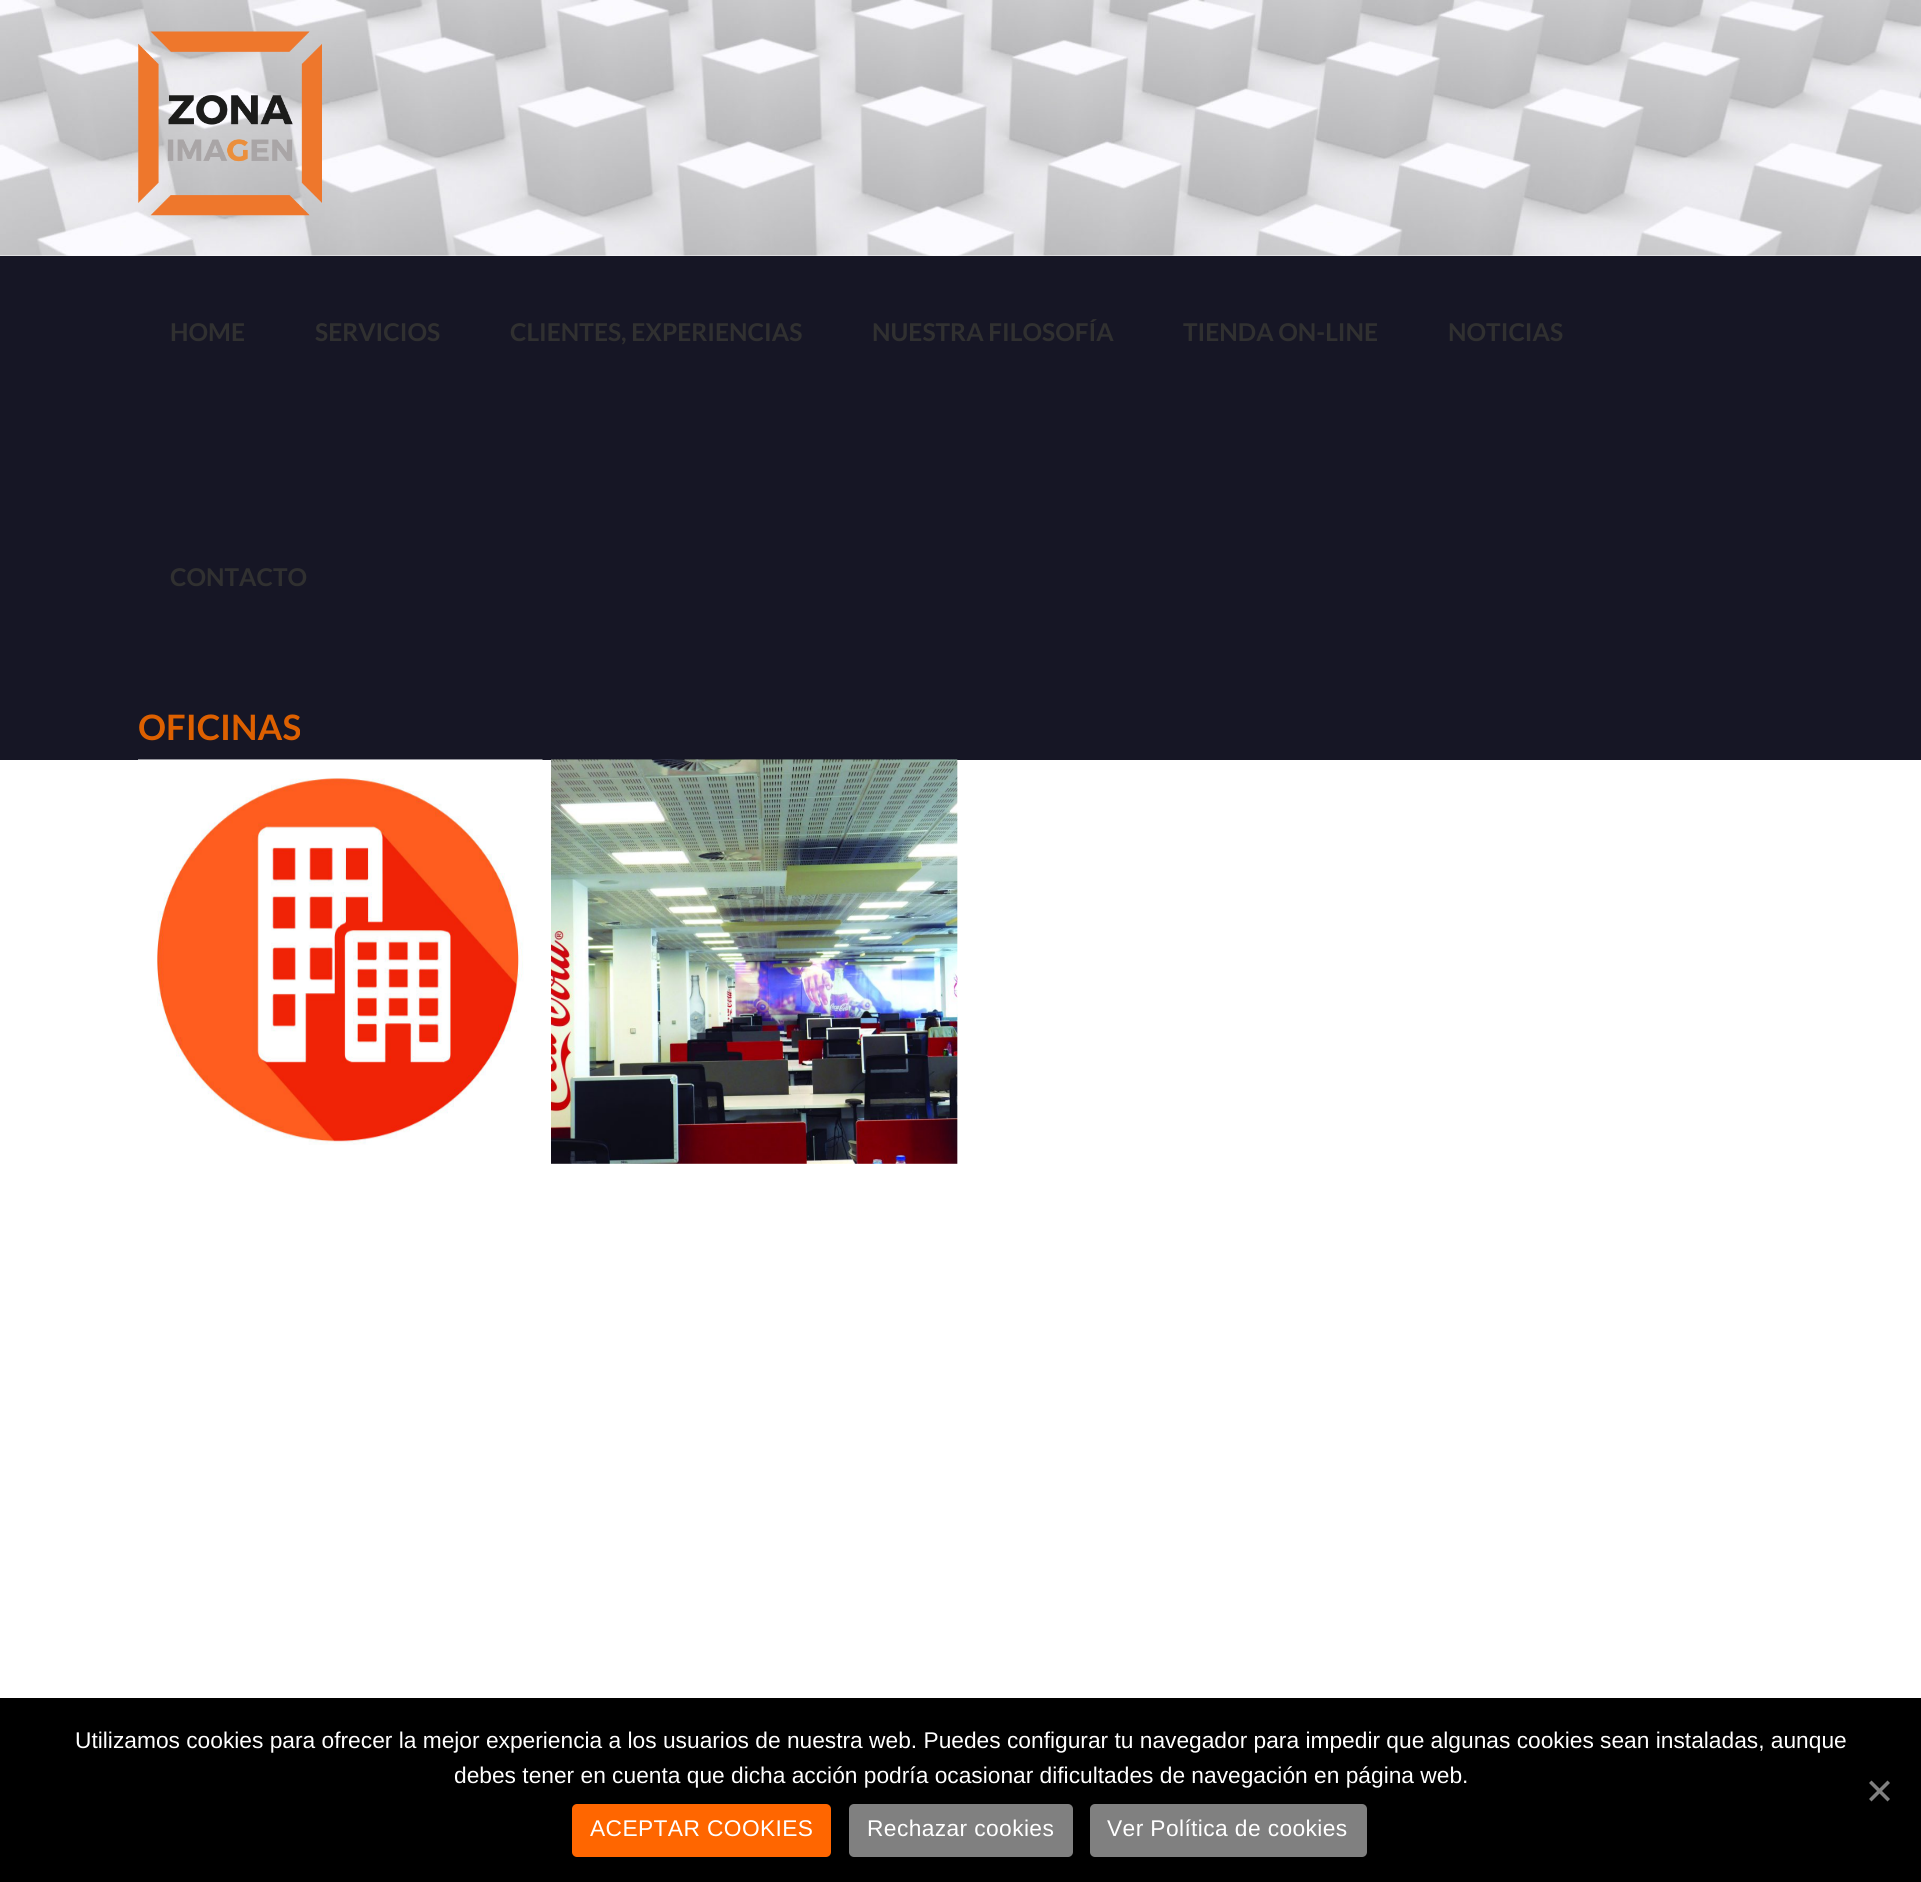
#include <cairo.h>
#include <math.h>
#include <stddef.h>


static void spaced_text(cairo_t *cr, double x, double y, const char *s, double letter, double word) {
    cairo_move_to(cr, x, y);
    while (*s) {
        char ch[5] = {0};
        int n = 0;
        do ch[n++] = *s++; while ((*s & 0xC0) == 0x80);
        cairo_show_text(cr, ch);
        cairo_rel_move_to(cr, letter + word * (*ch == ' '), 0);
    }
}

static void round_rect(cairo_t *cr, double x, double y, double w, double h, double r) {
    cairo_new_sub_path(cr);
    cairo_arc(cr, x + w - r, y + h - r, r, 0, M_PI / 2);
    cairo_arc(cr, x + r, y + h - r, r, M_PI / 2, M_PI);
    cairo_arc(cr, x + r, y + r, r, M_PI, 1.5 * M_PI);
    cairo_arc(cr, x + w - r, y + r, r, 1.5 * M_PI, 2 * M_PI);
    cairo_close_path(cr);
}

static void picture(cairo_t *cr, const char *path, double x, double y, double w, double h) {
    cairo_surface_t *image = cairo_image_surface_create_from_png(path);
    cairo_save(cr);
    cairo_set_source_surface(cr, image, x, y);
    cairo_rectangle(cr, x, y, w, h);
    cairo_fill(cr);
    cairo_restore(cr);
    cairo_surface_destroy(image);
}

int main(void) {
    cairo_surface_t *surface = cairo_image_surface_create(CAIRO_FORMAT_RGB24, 1921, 1882);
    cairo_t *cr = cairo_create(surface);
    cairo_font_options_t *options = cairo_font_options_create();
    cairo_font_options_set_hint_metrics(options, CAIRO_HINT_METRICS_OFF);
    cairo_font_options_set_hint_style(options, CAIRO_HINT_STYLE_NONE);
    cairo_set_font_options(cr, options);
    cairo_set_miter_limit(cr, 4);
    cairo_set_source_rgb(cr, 1, 1, 1);
    cairo_paint(cr);
    picture(cr, "img1.png", 0, 0, 1921, 256);
    picture(cr, "img2.png", 138, 31, 184, 185);
    cairo_set_source_rgb(cr, 0.086, 0.086, 0.145);
    cairo_rectangle(cr, 0, 256, 1921, 504);
    cairo_fill(cr);
    cairo_select_font_face(cr, "Lato", CAIRO_FONT_SLANT_NORMAL, CAIRO_FONT_WEIGHT_BOLD);
    cairo_set_font_size(cr, 24.5);
    cairo_set_source_rgb(cr, 0.188, 0.188, 0.188);
    cairo_move_to(cr, 170, 341);
    cairo_show_text(cr, "HOME");
    cairo_move_to(cr, 315, 341);
    cairo_show_text(cr, "SERVICIOS");
    cairo_move_to(cr, 510, 341);
    cairo_show_text(cr, "CLIENTES, EXPERIENCIAS");
    cairo_move_to(cr, 872, 341);
    cairo_show_text(cr, "NUESTRA FILOSOFÍA");
    cairo_move_to(cr, 1183, 341);
    cairo_show_text(cr, "TIENDA ON-LINE");
    cairo_move_to(cr, 1448, 341);
    cairo_show_text(cr, "NOTICIAS");
    cairo_move_to(cr, 170, 586);
    cairo_show_text(cr, "CONTACTO");
    cairo_set_font_size(cr, 35);
    cairo_set_source_rgb(cr, 0.867, 0.376, 0);
    cairo_move_to(cr, 138, 740);
    cairo_show_text(cr, "OFICINAS");
    picture(cr, "img3.png", 138, 759, 405, 386);
    picture(cr, "img4.png", 551, 759, 407, 405);
    cairo_set_source_rgb(cr, 0, 0, 0);
    cairo_rectangle(cr, 0, 1698, 1921, 184);
    cairo_fill(cr);
    cairo_select_font_face(cr, "Liberation Sans", CAIRO_FONT_SLANT_NORMAL, CAIRO_FONT_WEIGHT_NORMAL);
    cairo_set_font_size(cr, 22.75);
    cairo_set_source_rgb(cr, 1, 1, 1);
    cairo_move_to(cr, 75, 1748);
    cairo_show_text(cr, "Utilizamos cookies para ofrecer la mejor experiencia a los usuarios de nuestra web. Puedes configurar tu navegador para impedir que algunas cookies sean instaladas, aunque");
    cairo_move_to(cr, 454, 1783);
    cairo_show_text(cr, "debes tener en cuenta que dicha acción podría ocasionar dificultades de navegación en página web.");
    cairo_set_source_rgb(cr, 0.502, 0.502, 0.502);
    cairo_new_path(cr);
    cairo_move_to(cr, 1887.5, 1780.5);
    cairo_line_to(cr, 1890, 1783);
    cairo_line_to(cr, 1871.5, 1801.5);
    cairo_line_to(cr, 1869, 1799);
    cairo_close_path(cr);
    cairo_fill(cr);
    cairo_new_path(cr);
    cairo_move_to(cr, 1869, 1783);
    cairo_line_to(cr, 1871.5, 1780.5);
    cairo_line_to(cr, 1890, 1799);
    cairo_line_to(cr, 1887.5, 1801.5);
    cairo_close_path(cr);
    cairo_fill(cr);
    cairo_set_source_rgb(cr, 1, 0.4, 0);
    round_rect(cr, 572, 1804, 259, 53, 5);
    cairo_fill(cr);
    cairo_set_source_rgb(cr, 1, 1, 1);
    spaced_text(cr, 590, 1836, "ACEPTAR COOKIES", 0.4, 0);
    cairo_set_source_rgb(cr, 0.502, 0.502, 0.502);
    round_rect(cr, 849, 1804, 224, 53, 5);
    cairo_fill(cr);
    cairo_set_source_rgb(cr, 1, 1, 1);
    spaced_text(cr, 867, 1836, "Rechazar cookies", 0.4, 0);
    cairo_set_source_rgb(cr, 0.502, 0.502, 0.502);
    round_rect(cr, 1090, 1804, 277, 53, 5);
    cairo_fill(cr);
    cairo_set_source_rgb(cr, 1, 1, 1);
    spaced_text(cr, 1107, 1836, "Ver Política de cookies", 0.4, 0);
    cairo_surface_write_to_png(surface, "page.png");
    cairo_font_options_destroy(options);
    cairo_destroy(cr);
    cairo_surface_destroy(surface);
    return 0;
}
